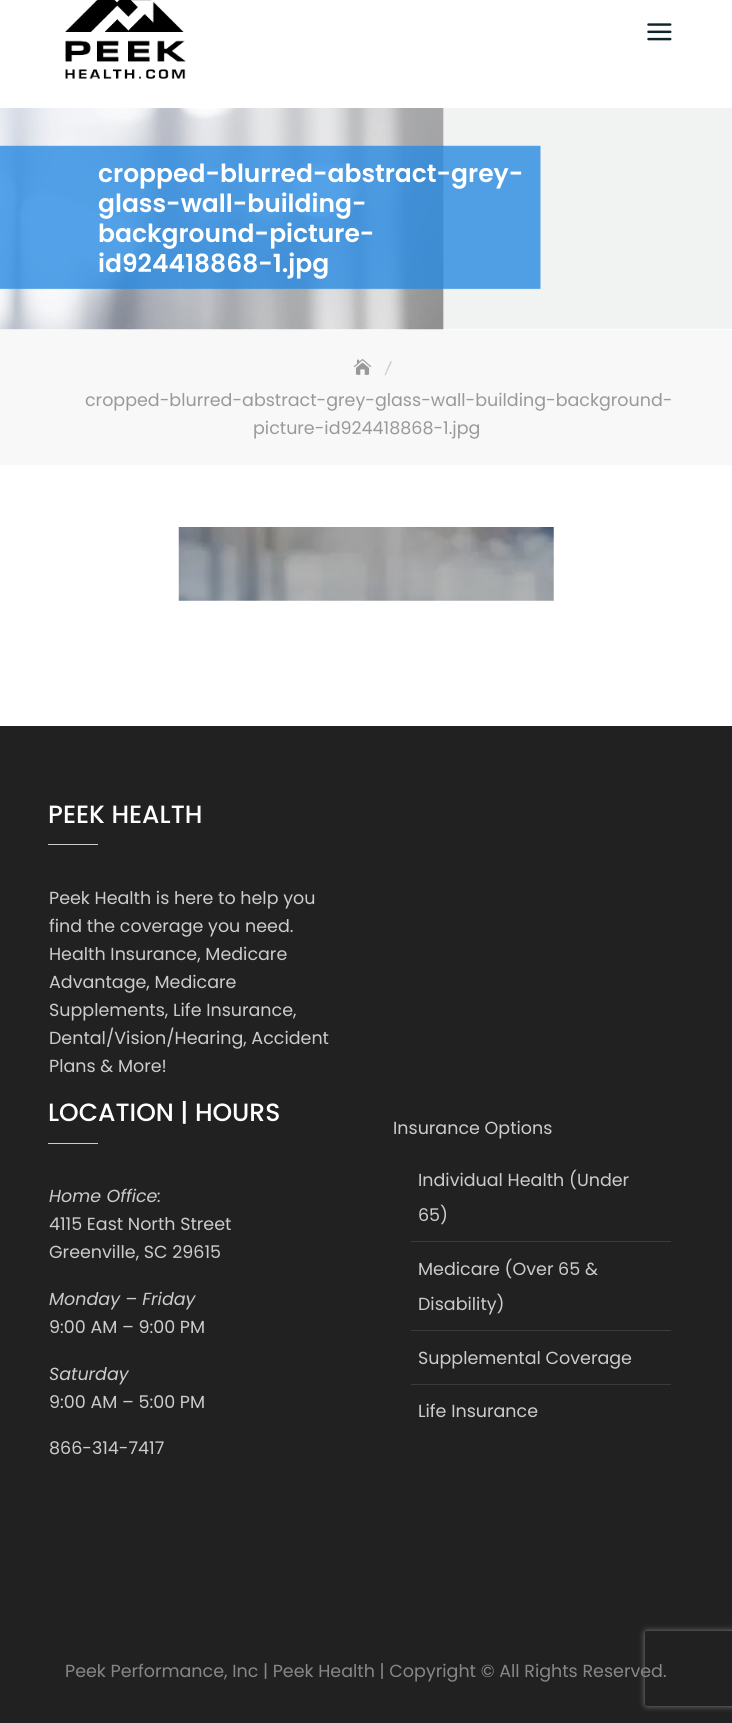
#include <cairo.h>
#include <math.h>
#include <stddef.h>


static void round_rect(cairo_t *cr, double x, double y, double w, double h, double r) {
    cairo_new_sub_path(cr);
    cairo_arc(cr, x + w - r, y + h - r, r, 0, M_PI / 2);
    cairo_arc(cr, x + r, y + h - r, r, M_PI / 2, M_PI);
    cairo_arc(cr, x + r, y + r, r, M_PI, 1.5 * M_PI);
    cairo_arc(cr, x + w - r, y + r, r, 1.5 * M_PI, 2 * M_PI);
    cairo_close_path(cr);
}

static void shadow(cairo_t *cr, double x, double y, double w, double h, double r, double blur, double alpha) {
    cairo_push_group_with_content(cr, CAIRO_CONTENT_ALPHA);
    cairo_set_operator(cr, CAIRO_OPERATOR_SOURCE);
    for (int i = 15; i >= -15 && fmin(w, h) + blur * i / 3 > 0; i -= 2) {
        double e = blur * i / 6;
        cairo_set_source_rgba(cr, 0, 0, 0, alpha * erfc((i - 1) / 8.5) / 2);
        round_rect(cr, x - e, y - e, w + 2 * e, h + 2 * e, fmax(0, fmin(r + e + blur * .6, fmin(w, h) / 2 + e)));
        cairo_fill(cr);
    }
    cairo_pattern_t *soft = cairo_pop_group(cr);
    cairo_mask(cr, soft);
    cairo_pattern_destroy(soft);
}

static void picture(cairo_t *cr, const char *path, double x, double y, double w, double h) {
    cairo_surface_t *image = cairo_image_surface_create_from_png(path);
    cairo_save(cr);
    cairo_set_source_surface(cr, image, x, y);
    cairo_rectangle(cr, x, y, w, h);
    cairo_fill(cr);
    cairo_restore(cr);
    cairo_surface_destroy(image);
}

int main(void) {
    cairo_surface_t *surface = cairo_image_surface_create(CAIRO_FORMAT_RGB24, 732, 1723);
    cairo_t *cr = cairo_create(surface);
    cairo_font_options_t *options = cairo_font_options_create();
    cairo_font_options_set_hint_metrics(options, CAIRO_HINT_METRICS_OFF);
    cairo_font_options_set_hint_style(options, CAIRO_HINT_STYLE_NONE);
    cairo_set_font_options(cr, options);
    cairo_set_miter_limit(cr, 4);
    cairo_set_source_rgb(cr, 1, 1, 1);
    cairo_paint(cr);
    picture(cr, "img1.png", 65, 0, 121, 79);
    picture(cr, "img2.png", 647, 23, 25, 18);
    picture(cr, "img3.png", 0, 108, 732, 222);
    cairo_select_font_face(cr, "Poppins SemiBold", CAIRO_FONT_SLANT_NORMAL, CAIRO_FONT_WEIGHT_NORMAL);
    cairo_set_font_size(cr, 25);
    cairo_set_source_rgb(cr, 1, 1, 1);
    cairo_move_to(cr, 98, 182);
    cairo_show_text(cr, "cropped-blurred-abstract-grey-");
    cairo_move_to(cr, 98, 212);
    cairo_show_text(cr, "glass-wall-building-");
    cairo_move_to(cr, 98, 242);
    cairo_show_text(cr, "background-picture-");
    cairo_move_to(cr, 98, 272);
    cairo_show_text(cr, "id924418868-1.jpg");
    cairo_set_source_rgb(cr, 0.969, 0.969, 0.969);
    cairo_rectangle(cr, 0, 330, 732, 135);
    cairo_fill(cr);
    picture(cr, "img4.png", 353, 359, 19, 16);
    cairo_set_source_rgb(cr, 0.8, 0.8, 0.8);
    cairo_new_path(cr);
    cairo_move_to(cr, 390.5, 361);
    cairo_line_to(cr, 392, 361.5);
    cairo_line_to(cr, 385.5, 375.5);
    cairo_line_to(cr, 384.5, 375);
    cairo_close_path(cr);
    cairo_fill(cr);
    cairo_select_font_face(cr, "Poppins", CAIRO_FONT_SLANT_NORMAL, CAIRO_FONT_WEIGHT_NORMAL);
    cairo_set_font_size(cr, 17.5);
    cairo_set_source_rgb(cr, 0.6, 0.6, 0.6);
    cairo_move_to(cr, 85, 406);
    cairo_show_text(cr, "cropped-blurred-abstract-grey-glass-wall-building-background-");
    cairo_move_to(cr, 253, 434);
    cairo_show_text(cr, "picture-id924418868-1.jpg");
    picture(cr, "img5.png", 178, 527, 376, 74);
    cairo_set_source_rgb(cr, 0.129, 0.129, 0.129);
    cairo_rectangle(cr, 0, 726, 732, 997);
    cairo_fill(cr);
    cairo_select_font_face(cr, "Poppins Medium", CAIRO_FONT_SLANT_NORMAL, CAIRO_FONT_WEIGHT_NORMAL);
    cairo_set_font_size(cr, 25);
    cairo_set_source_rgb(cr, 1, 1, 1);
    cairo_move_to(cr, 48, 823);
    cairo_show_text(cr, "PEEK HEALTH");
    cairo_set_source_rgb(cr, 0.8, 0.8, 0.8);
    cairo_rectangle(cr, 48, 844, 50, 1);
    cairo_fill(cr);
    cairo_select_font_face(cr, "Poppins", CAIRO_FONT_SLANT_NORMAL, CAIRO_FONT_WEIGHT_NORMAL);
    cairo_set_font_size(cr, 17.5);
    cairo_move_to(cr, 49, 904);
    cairo_show_text(cr, "Peek Health is here to help you");
    cairo_move_to(cr, 49, 932);
    cairo_show_text(cr, "find the coverage you need.");
    cairo_move_to(cr, 49, 960);
    cairo_show_text(cr, "Health Insurance, Medicare");
    cairo_move_to(cr, 49, 988);
    cairo_show_text(cr, "Advantage, Medicare");
    cairo_move_to(cr, 49, 1016);
    cairo_show_text(cr, "Supplements, Life Insurance,");
    cairo_move_to(cr, 49, 1044);
    cairo_show_text(cr, "Dental/Vision/Hearing, Accident");
    cairo_move_to(cr, 49, 1072);
    cairo_show_text(cr, "Plans & More!");
    cairo_select_font_face(cr, "Poppins Medium", CAIRO_FONT_SLANT_NORMAL, CAIRO_FONT_WEIGHT_NORMAL);
    cairo_set_font_size(cr, 25);
    cairo_set_source_rgb(cr, 1, 1, 1);
    cairo_move_to(cr, 48, 1121);
    cairo_show_text(cr, "LOCATION | HOURS");
    cairo_set_source_rgb(cr, 0.8, 0.8, 0.8);
    cairo_rectangle(cr, 48, 1143, 50, 1);
    cairo_fill(cr);
    cairo_select_font_face(cr, "Poppins", CAIRO_FONT_SLANT_ITALIC, CAIRO_FONT_WEIGHT_NORMAL);
    cairo_set_font_size(cr, 17.5);
    cairo_move_to(cr, 49, 1202);
    cairo_show_text(cr, "Home Office:");
    cairo_select_font_face(cr, "Poppins", CAIRO_FONT_SLANT_NORMAL, CAIRO_FONT_WEIGHT_NORMAL);
    cairo_move_to(cr, 49, 1230);
    cairo_show_text(cr, "4115 East North Street");
    cairo_move_to(cr, 49, 1258);
    cairo_show_text(cr, "Greenville, SC 29615");
    cairo_select_font_face(cr, "Poppins", CAIRO_FONT_SLANT_ITALIC, CAIRO_FONT_WEIGHT_NORMAL);
    cairo_move_to(cr, 49, 1305);
    cairo_show_text(cr, "Monday – Friday");
    cairo_select_font_face(cr, "Poppins", CAIRO_FONT_SLANT_NORMAL, CAIRO_FONT_WEIGHT_NORMAL);
    cairo_move_to(cr, 49, 1333);
    cairo_show_text(cr, "9:00 AM – 9:00 PM");
    cairo_select_font_face(cr, "Poppins", CAIRO_FONT_SLANT_ITALIC, CAIRO_FONT_WEIGHT_NORMAL);
    cairo_move_to(cr, 49, 1380);
    cairo_show_text(cr, "Saturday");
    cairo_select_font_face(cr, "Poppins", CAIRO_FONT_SLANT_NORMAL, CAIRO_FONT_WEIGHT_NORMAL);
    cairo_move_to(cr, 49, 1408);
    cairo_show_text(cr, "9:00 AM – 5:00 PM");
    cairo_move_to(cr, 49, 1454);
    cairo_show_text(cr, "866-314-7417");
    cairo_move_to(cr, 393, 1134);
    cairo_show_text(cr, "Insurance Options");
    cairo_move_to(cr, 418, 1186);
    cairo_show_text(cr, "Individual Health (Under");
    cairo_move_to(cr, 418, 1221);
    cairo_show_text(cr, "65)");
    cairo_set_source_rgb(cr, 0.231, 0.231, 0.231);
    cairo_rectangle(cr, 411, 1241, 260, 1);
    cairo_fill(cr);
    cairo_set_source_rgb(cr, 0.8, 0.8, 0.8);
    cairo_move_to(cr, 418, 1275);
    cairo_show_text(cr, "Medicare (Over 65 &");
    cairo_move_to(cr, 418, 1310);
    cairo_show_text(cr, "Disability)");
    cairo_set_source_rgb(cr, 0.231, 0.231, 0.231);
    cairo_rectangle(cr, 411, 1330, 260, 1);
    cairo_fill(cr);
    cairo_set_source_rgb(cr, 0.8, 0.8, 0.8);
    cairo_move_to(cr, 418, 1364);
    cairo_show_text(cr, "Supplemental Coverage");
    cairo_set_source_rgb(cr, 0.231, 0.231, 0.231);
    cairo_rectangle(cr, 411, 1384, 260, 1);
    cairo_fill(cr);
    cairo_set_source_rgb(cr, 0.8, 0.8, 0.8);
    cairo_move_to(cr, 418, 1417);
    cairo_show_text(cr, "Life Insurance");
    cairo_set_source_rgb(cr, 0.529, 0.529, 0.529);
    cairo_move_to(cr, 65, 1677);
    cairo_show_text(cr, "Peek Performance, Inc | Peek Health | Copyright © All Rights Reserved.");
    cairo_save(cr);
    cairo_set_fill_rule(cr, CAIRO_FILL_RULE_EVEN_ODD);
    cairo_new_path(cr);
    cairo_move_to(cr, 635, 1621);
    cairo_line_to(cr, 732, 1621);
    cairo_line_to(cr, 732, 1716);
    cairo_line_to(cr, 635, 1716);
    cairo_close_path(cr);
    cairo_move_to(cr, 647.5, 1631);
    cairo_line_to(cr, 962.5, 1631);
    cairo_curve_to(cr, 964, 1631, 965, 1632, 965, 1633.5);
    cairo_line_to(cr, 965, 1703.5);
    cairo_curve_to(cr, 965, 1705, 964, 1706, 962.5, 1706);
    cairo_line_to(cr, 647.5, 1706);
    cairo_curve_to(cr, 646, 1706, 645, 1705, 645, 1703.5);
    cairo_line_to(cr, 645, 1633.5);
    cairo_curve_to(cr, 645, 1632, 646, 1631, 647.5, 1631);
    cairo_close_path(cr);
    cairo_clip(cr);
    cairo_set_source_rgb(cr, 0.502, 0.502, 0.502);
    shadow(cr, 645, 1631, 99, 75, 2.5, 3, 1);
    cairo_restore(cr);
    cairo_surface_write_to_png(surface, "page.png");
    cairo_font_options_destroy(options);
    cairo_destroy(cr);
    cairo_surface_destroy(surface);
    return 0;
}
